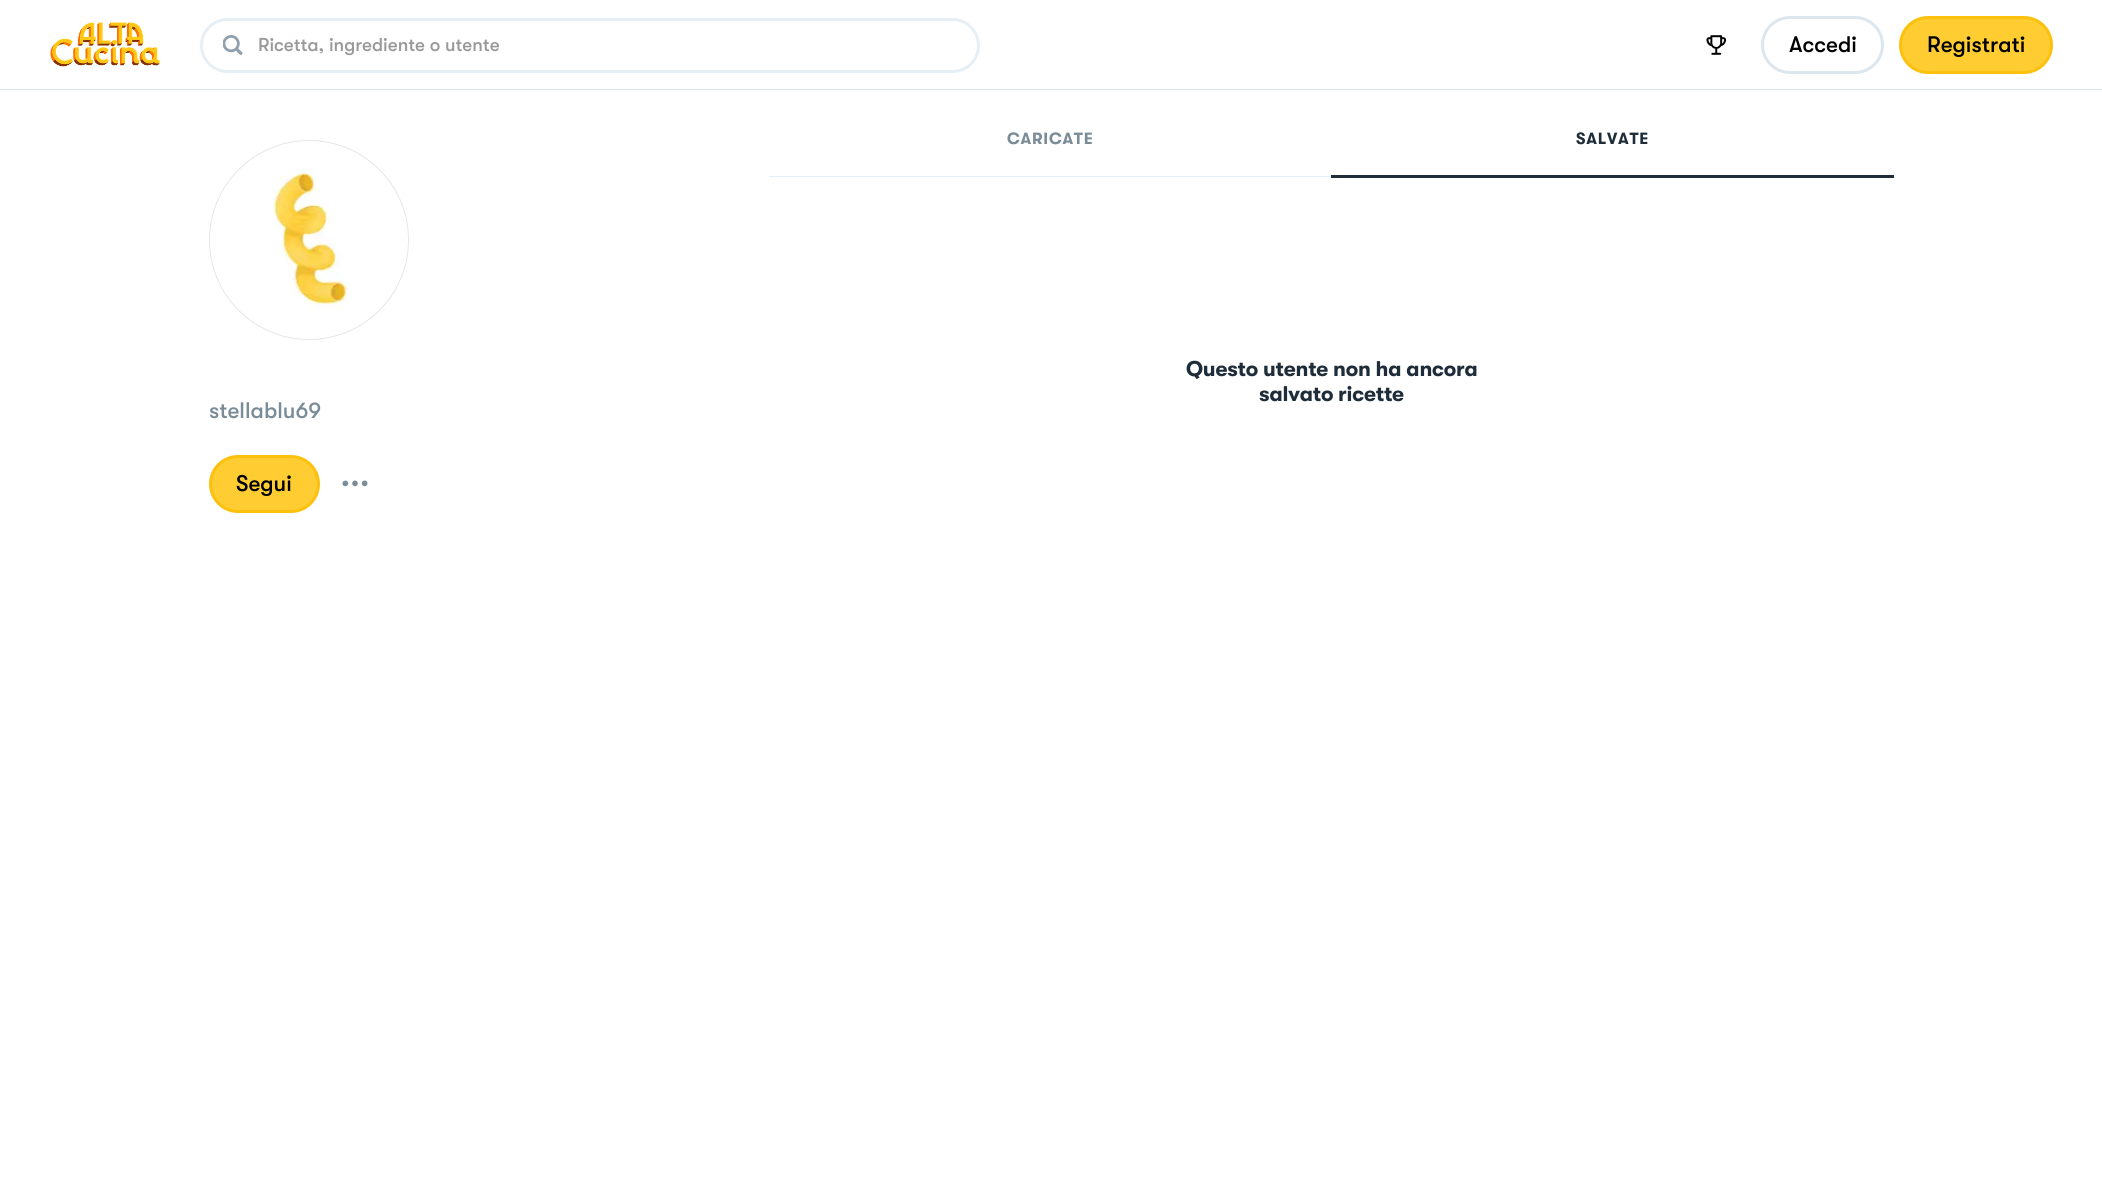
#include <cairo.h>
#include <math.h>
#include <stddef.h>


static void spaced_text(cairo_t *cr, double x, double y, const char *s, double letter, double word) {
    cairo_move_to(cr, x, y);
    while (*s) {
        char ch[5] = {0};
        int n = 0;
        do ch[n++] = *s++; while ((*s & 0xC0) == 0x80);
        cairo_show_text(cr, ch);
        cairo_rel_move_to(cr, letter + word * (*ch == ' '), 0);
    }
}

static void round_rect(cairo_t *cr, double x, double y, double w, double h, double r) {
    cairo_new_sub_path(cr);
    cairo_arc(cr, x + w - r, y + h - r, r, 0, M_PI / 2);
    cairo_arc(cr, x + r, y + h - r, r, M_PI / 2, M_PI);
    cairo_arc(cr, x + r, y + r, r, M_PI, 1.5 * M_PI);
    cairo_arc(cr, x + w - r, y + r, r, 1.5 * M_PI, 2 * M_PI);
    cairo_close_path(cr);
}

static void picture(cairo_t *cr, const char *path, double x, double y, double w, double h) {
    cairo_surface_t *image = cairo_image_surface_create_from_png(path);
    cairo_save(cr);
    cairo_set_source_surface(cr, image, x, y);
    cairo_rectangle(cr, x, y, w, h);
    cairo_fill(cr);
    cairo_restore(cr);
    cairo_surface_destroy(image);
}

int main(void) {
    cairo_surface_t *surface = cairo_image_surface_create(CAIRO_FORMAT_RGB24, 2102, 1200);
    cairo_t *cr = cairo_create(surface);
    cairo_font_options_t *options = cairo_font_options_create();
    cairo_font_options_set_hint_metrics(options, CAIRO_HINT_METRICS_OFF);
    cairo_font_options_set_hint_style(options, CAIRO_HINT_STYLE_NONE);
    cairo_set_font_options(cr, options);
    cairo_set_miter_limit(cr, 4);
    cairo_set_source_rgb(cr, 1, 1, 1);
    cairo_paint(cr);
    cairo_set_source_rgb(cr, 0.863, 0.902, 0.933);
    cairo_rectangle(cr, 0, 89, 2102, 1);
    cairo_fill(cr);
    picture(cr, "img1.png", 50, 22, 110, 45);
    round_rect(cr, 201.5, 19.5, 777, 52, 26);
    cairo_set_source_rgb(cr, 0.902, 0.937, 0.961);
    cairo_set_line_width(cr, 3);
    cairo_stroke(cr);
    picture(cr, "img2.png", 223, 35, 20, 20);
    cairo_select_font_face(cr, "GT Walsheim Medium", CAIRO_FONT_SLANT_NORMAL, CAIRO_FONT_WEIGHT_NORMAL);
    cairo_set_font_size(cr, 18.75);
    cairo_set_source_rgb(cr, 0.6, 0.6, 0.6);
    cairo_move_to(cr, 258, 51);
    cairo_show_text(cr, "Ricetta, ingrediente o utente");
    picture(cr, "img3.png", 1706, 35, 20, 20);
    round_rect(cr, 1762.5, 17.5, 120, 55, 27.5);
    cairo_set_source_rgb(cr, 0.863, 0.902, 0.933);
    cairo_stroke(cr);
    cairo_set_font_size(cr, 22.5);
    cairo_set_source_rgb(cr, 0, 0, 0);
    cairo_move_to(cr, 1789, 52);
    cairo_show_text(cr, "Accedi");
    cairo_set_source_rgb(cr, 1, 0.804, 0.196);
    round_rect(cr, 1900.5, 17.5, 151, 55, 27.5);
    cairo_fill_preserve(cr);
    cairo_set_source_rgb(cr, 0.984, 0.757, 0.051);
    cairo_stroke(cr);
    cairo_set_source_rgb(cr, 0, 0, 0);
    cairo_move_to(cr, 1927, 52);
    cairo_show_text(cr, "Registrati");
    cairo_set_source_rgb(cr, 0.902, 0.937, 0.961);
    cairo_rectangle(cr, 769, 176, 562, 1);
    cairo_fill(cr);
    cairo_select_font_face(cr, "GT Walsheim", CAIRO_FONT_SLANT_NORMAL, CAIRO_FONT_WEIGHT_BOLD);
    cairo_set_font_size(cr, 16.25);
    cairo_set_source_rgb(cr, 0.482, 0.549, 0.6);
    spaced_text(cr, 1007, 144, "CARICATE", 0.75, 0);
    cairo_set_source_rgb(cr, 0.118, 0.176, 0.224);
    spaced_text(cr, 1576, 144, "SALVATE", 0.75, 0);
    cairo_rectangle(cr, 1331, 175, 563, 3);
    cairo_fill(cr);
    cairo_set_font_size(cr, 21.25);
    spaced_text(cr, 1186, 376, "Questo utente non ha ancora", -0.2, 0);
    spaced_text(cr, 1259, 401, "salvato ricette", -0.2, 0);
    picture(cr, "img4.png", 273, 169, 75, 140);
    cairo_arc(cr, 309, 240, 99.5, 0, 2 * M_PI);
    cairo_set_source_rgb(cr, 0.902, 0.902, 0.902);
    cairo_set_line_width(cr, 1);
    cairo_stroke(cr);
    cairo_select_font_face(cr, "GT Walsheim Medium", CAIRO_FONT_SLANT_NORMAL, CAIRO_FONT_WEIGHT_NORMAL);
    cairo_set_font_size(cr, 22.5);
    cairo_set_source_rgb(cr, 0.482, 0.549, 0.6);
    cairo_move_to(cr, 209, 418);
    cairo_show_text(cr, "stellablu69");
    cairo_set_source_rgb(cr, 1, 0.804, 0.196);
    round_rect(cr, 210.5, 456.5, 108, 55, 27.5);
    cairo_fill_preserve(cr);
    cairo_set_source_rgb(cr, 0.984, 0.757, 0.051);
    cairo_set_line_width(cr, 3);
    cairo_stroke(cr);
    cairo_set_source_rgb(cr, 0, 0, 0);
    cairo_move_to(cr, 236, 491);
    cairo_show_text(cr, "Segui");
    picture(cr, "img5.png", 342, 480, 26, 7);
    cairo_surface_write_to_png(surface, "page.png");
    cairo_font_options_destroy(options);
    cairo_destroy(cr);
    cairo_surface_destroy(surface);
    return 0;
}
